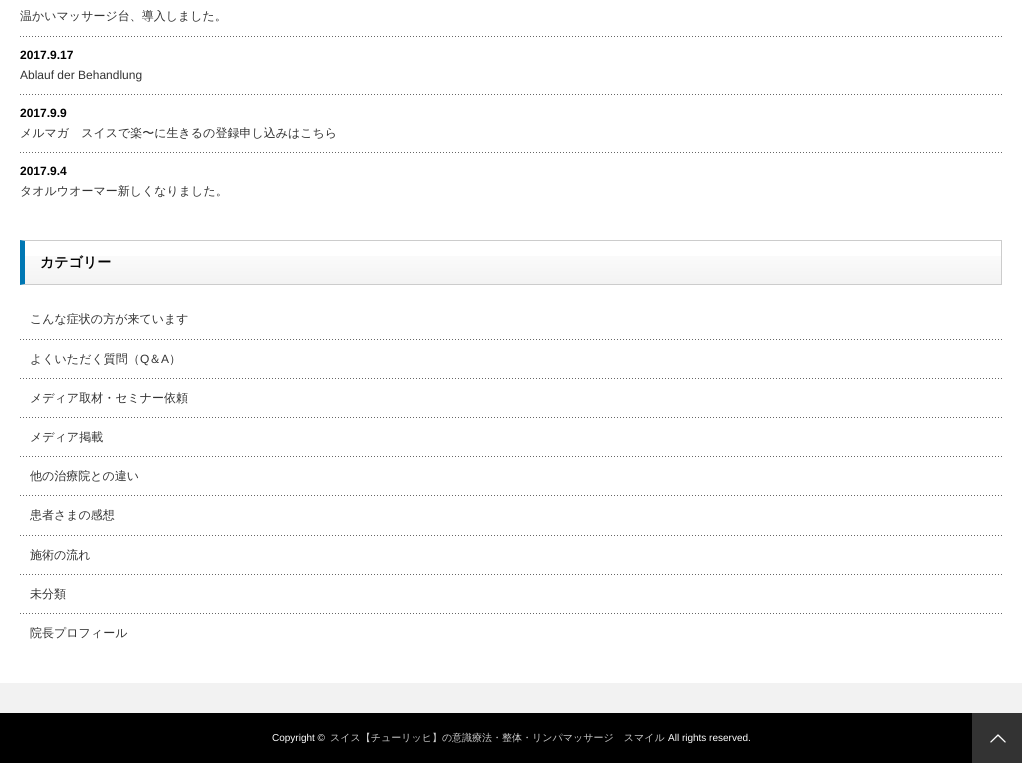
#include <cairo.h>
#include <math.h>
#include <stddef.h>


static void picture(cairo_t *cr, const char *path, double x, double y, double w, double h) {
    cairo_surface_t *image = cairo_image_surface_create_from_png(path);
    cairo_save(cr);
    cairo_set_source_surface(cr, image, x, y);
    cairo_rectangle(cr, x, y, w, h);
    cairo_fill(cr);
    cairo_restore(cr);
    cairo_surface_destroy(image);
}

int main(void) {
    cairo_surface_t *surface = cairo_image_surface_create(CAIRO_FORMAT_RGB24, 1022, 763);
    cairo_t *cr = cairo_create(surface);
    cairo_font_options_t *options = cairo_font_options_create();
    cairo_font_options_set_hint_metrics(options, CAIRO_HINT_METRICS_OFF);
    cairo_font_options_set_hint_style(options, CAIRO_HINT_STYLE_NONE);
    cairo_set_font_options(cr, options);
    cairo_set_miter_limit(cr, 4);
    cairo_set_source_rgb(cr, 1, 1, 1);
    cairo_paint(cr);
    picture(cr, "img1.png", 20, 36, 982, 1);
    cairo_select_font_face(cr, "WenQuanYi Zen Hei Medium", CAIRO_FONT_SLANT_NORMAL, CAIRO_FONT_WEIGHT_NORMAL);
    cairo_set_font_size(cr, 12);
    cairo_set_source_rgb(cr, 0.2, 0.2, 0.2);
    cairo_move_to(cr, 20, 20);
    cairo_show_text(cr, "温かいマッサージ台、導入しました。");
    picture(cr, "img1.png", 20, 94, 982, 1);
    cairo_select_font_face(cr, "Liberation Sans", CAIRO_FONT_SLANT_NORMAL, CAIRO_FONT_WEIGHT_BOLD);
    cairo_set_source_rgb(cr, 0, 0, 0);
    cairo_move_to(cr, 20, 59);
    cairo_show_text(cr, "2017.9.17");
    cairo_select_font_face(cr, "Liberation Sans", CAIRO_FONT_SLANT_NORMAL, CAIRO_FONT_WEIGHT_NORMAL);
    cairo_set_source_rgb(cr, 0.2, 0.2, 0.2);
    cairo_move_to(cr, 20, 79);
    cairo_show_text(cr, "Ablauf der Behandlung");
    picture(cr, "img1.png", 20, 152, 982, 1);
    cairo_select_font_face(cr, "Liberation Sans", CAIRO_FONT_SLANT_NORMAL, CAIRO_FONT_WEIGHT_BOLD);
    cairo_set_source_rgb(cr, 0, 0, 0);
    cairo_move_to(cr, 20, 117);
    cairo_show_text(cr, "2017.9.9");
    cairo_select_font_face(cr, "WenQuanYi Zen Hei Medium", CAIRO_FONT_SLANT_NORMAL, CAIRO_FONT_WEIGHT_NORMAL);
    cairo_set_source_rgb(cr, 0.2, 0.2, 0.2);
    cairo_move_to(cr, 20, 137);
    cairo_show_text(cr, "メルマガ　スイスで楽〜に生きるの登録申し込みはこちら");
    cairo_select_font_face(cr, "Liberation Sans", CAIRO_FONT_SLANT_NORMAL, CAIRO_FONT_WEIGHT_BOLD);
    cairo_set_source_rgb(cr, 0, 0, 0);
    cairo_move_to(cr, 20, 175);
    cairo_show_text(cr, "2017.9.4");
    cairo_select_font_face(cr, "WenQuanYi Zen Hei Medium", CAIRO_FONT_SLANT_NORMAL, CAIRO_FONT_WEIGHT_NORMAL);
    cairo_set_source_rgb(cr, 0.2, 0.2, 0.2);
    cairo_move_to(cr, 20, 195);
    cairo_show_text(cr, "タオルウオーマー新しくなりました。");
    picture(cr, "img2.png", 25, 256, 976, 28);
    cairo_set_source_rgb(cr, 0.8, 0.8, 0.8);
    cairo_new_path(cr);
    cairo_move_to(cr, 20, 240);
    cairo_line_to(cr, 1002, 240);
    cairo_line_to(cr, 1001, 241);
    cairo_line_to(cr, 25, 241);
    cairo_close_path(cr);
    cairo_fill(cr);
    cairo_rectangle(cr, 1001, 240, 1, 45);
    cairo_fill(cr);
    cairo_new_path(cr);
    cairo_move_to(cr, 1002, 285);
    cairo_line_to(cr, 20, 285);
    cairo_line_to(cr, 25, 284);
    cairo_line_to(cr, 1001, 284);
    cairo_close_path(cr);
    cairo_fill(cr);
    cairo_set_source_rgb(cr, 0, 0.467, 0.702);
    cairo_new_path(cr);
    cairo_move_to(cr, 20, 285);
    cairo_line_to(cr, 20, 240);
    cairo_line_to(cr, 25, 241);
    cairo_line_to(cr, 25, 284);
    cairo_close_path(cr);
    cairo_fill(cr);
    cairo_select_font_face(cr, "WenQuanYi Zen Hei", CAIRO_FONT_SLANT_NORMAL, CAIRO_FONT_WEIGHT_BOLD);
    cairo_set_font_size(cr, 14);
    cairo_set_source_rgb(cr, 0, 0, 0);
    cairo_move_to(cr, 40, 267);
    cairo_show_text(cr, "カテゴリー");
    picture(cr, "img1.png", 20, 339, 982, 1);
    cairo_select_font_face(cr, "WenQuanYi Zen Hei Medium", CAIRO_FONT_SLANT_NORMAL, CAIRO_FONT_WEIGHT_NORMAL);
    cairo_set_font_size(cr, 12);
    cairo_set_source_rgb(cr, 0.2, 0.2, 0.2);
    cairo_move_to(cr, 30, 323);
    cairo_show_text(cr, "こんな症状の方が来ています");
    picture(cr, "img1.png", 20, 378, 982, 1);
    cairo_move_to(cr, 30, 363);
    cairo_show_text(cr, "よくいただく質問（");
    cairo_select_font_face(cr, "Liberation Sans", CAIRO_FONT_SLANT_NORMAL, CAIRO_FONT_WEIGHT_NORMAL);
    cairo_move_to(cr, 140, 363);
    cairo_show_text(cr, "Q");
    cairo_select_font_face(cr, "WenQuanYi Zen Hei Medium", CAIRO_FONT_SLANT_NORMAL, CAIRO_FONT_WEIGHT_NORMAL);
    cairo_move_to(cr, 149, 363);
    cairo_show_text(cr, "＆");
    cairo_select_font_face(cr, "Liberation Sans", CAIRO_FONT_SLANT_NORMAL, CAIRO_FONT_WEIGHT_NORMAL);
    cairo_move_to(cr, 161, 363);
    cairo_show_text(cr, "A");
    cairo_select_font_face(cr, "WenQuanYi Zen Hei Medium", CAIRO_FONT_SLANT_NORMAL, CAIRO_FONT_WEIGHT_NORMAL);
    cairo_move_to(cr, 169, 363);
    cairo_show_text(cr, "）");
    picture(cr, "img1.png", 20, 417, 982, 1);
    cairo_move_to(cr, 30, 402);
    cairo_show_text(cr, "メディア取材・セミナー依頼");
    picture(cr, "img1.png", 20, 456, 982, 1);
    cairo_move_to(cr, 30, 441);
    cairo_show_text(cr, "メディア掲載");
    picture(cr, "img1.png", 20, 495, 982, 1);
    cairo_move_to(cr, 30, 480);
    cairo_show_text(cr, "他の治療院との違い");
    picture(cr, "img1.png", 20, 535, 982, 1);
    cairo_move_to(cr, 30, 519);
    cairo_show_text(cr, "患者さまの感想");
    picture(cr, "img1.png", 20, 574, 982, 1);
    cairo_move_to(cr, 30, 559);
    cairo_show_text(cr, "施術の流れ");
    picture(cr, "img1.png", 20, 613, 982, 1);
    cairo_move_to(cr, 30, 598);
    cairo_show_text(cr, "未分類");
    cairo_move_to(cr, 30, 637);
    cairo_show_text(cr, "院長プロフィール");
    cairo_set_source_rgb(cr, 0.949, 0.949, 0.949);
    cairo_rectangle(cr, 0, 683, 1022, 30);
    cairo_fill(cr);
    cairo_set_source_rgb(cr, 0, 0, 0);
    cairo_rectangle(cr, 0, 713, 972, 50);
    cairo_fill(cr);
    cairo_select_font_face(cr, "Liberation Sans", CAIRO_FONT_SLANT_NORMAL, CAIRO_FONT_WEIGHT_NORMAL);
    cairo_set_font_size(cr, 10);
    cairo_set_source_rgb(cr, 1, 1, 1);
    cairo_move_to(cr, 272, 741);
    cairo_show_text(cr, "Copyright ©");
    cairo_select_font_face(cr, "WenQuanYi Zen Hei Medium", CAIRO_FONT_SLANT_NORMAL, CAIRO_FONT_WEIGHT_NORMAL);
    cairo_set_source_rgb(cr, 0.8, 0.8, 0.8);
    cairo_move_to(cr, 330, 741);
    cairo_show_text(cr, "スイス【チューリッヒ】の意識療法・整体・リンパマッサージ　スマイル");
    cairo_select_font_face(cr, "Liberation Sans", CAIRO_FONT_SLANT_NORMAL, CAIRO_FONT_WEIGHT_NORMAL);
    cairo_set_source_rgb(cr, 1, 1, 1);
    cairo_move_to(cr, 668, 741);
    cairo_show_text(cr, "All rights reserved.");
    cairo_set_source_rgb(cr, 0.2, 0.2, 0.2);
    cairo_rectangle(cr, 972, 713, 50, 50);
    cairo_fill(cr);
    picture(cr, "img3.png", 990, 734, 16, 9);
    cairo_surface_write_to_png(surface, "page.png");
    cairo_font_options_destroy(options);
    cairo_destroy(cr);
    cairo_surface_destroy(surface);
    return 0;
}
